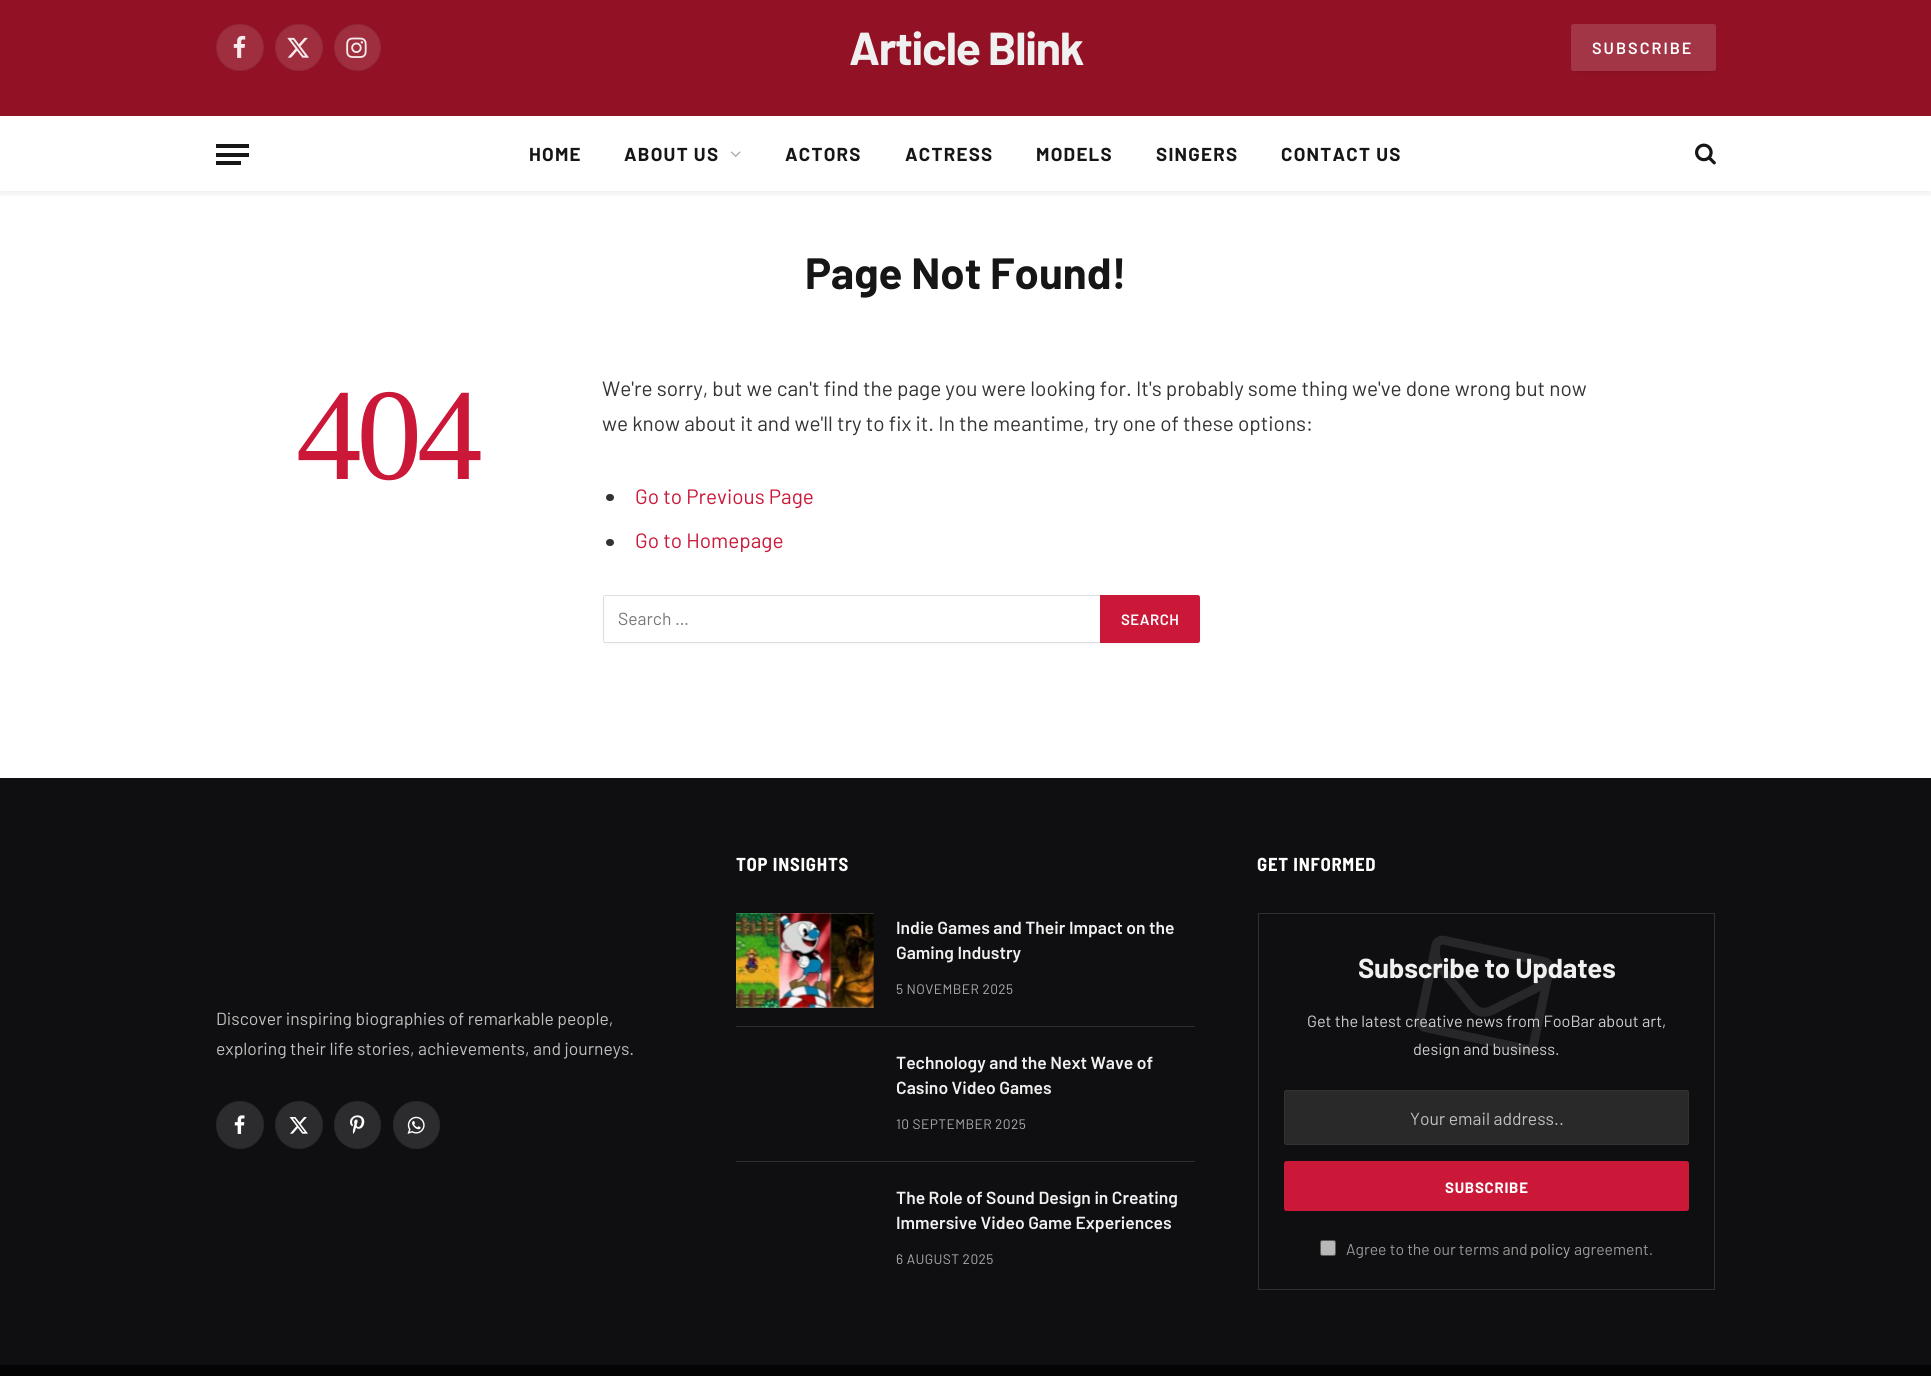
#include <cairo.h>
#include <math.h>
#include <stddef.h>


static void spaced_text(cairo_t *cr, double x, double y, const char *s, double letter, double word) {
    cairo_move_to(cr, x, y);
    while (*s) {
        char ch[5] = {0};
        int n = 0;
        do ch[n++] = *s++; while ((*s & 0xC0) == 0x80);
        cairo_show_text(cr, ch);
        cairo_rel_move_to(cr, letter + word * (*ch == ' '), 0);
    }
}

static void round_rect(cairo_t *cr, double x, double y, double w, double h, double r) {
    cairo_new_sub_path(cr);
    cairo_arc(cr, x + w - r, y + h - r, r, 0, M_PI / 2);
    cairo_arc(cr, x + r, y + h - r, r, M_PI / 2, M_PI);
    cairo_arc(cr, x + r, y + r, r, M_PI, 1.5 * M_PI);
    cairo_arc(cr, x + w - r, y + r, r, 1.5 * M_PI, 2 * M_PI);
    cairo_close_path(cr);
}

static void shadow(cairo_t *cr, double x, double y, double w, double h, double r, double blur, double alpha) {
    cairo_push_group_with_content(cr, CAIRO_CONTENT_ALPHA);
    cairo_set_operator(cr, CAIRO_OPERATOR_SOURCE);
    for (int i = 15; i >= -15 && fmin(w, h) + blur * i / 3 > 0; i -= 2) {
        double e = blur * i / 6;
        cairo_set_source_rgba(cr, 0, 0, 0, alpha * erfc((i - 1) / 8.5) / 2);
        round_rect(cr, x - e, y - e, w + 2 * e, h + 2 * e, fmax(0, fmin(r + e + blur * .6, fmin(w, h) / 2 + e)));
        cairo_fill(cr);
    }
    cairo_pattern_t *soft = cairo_pop_group(cr);
    cairo_mask(cr, soft);
    cairo_pattern_destroy(soft);
}

static void picture(cairo_t *cr, const char *path, double x, double y, double w, double h) {
    cairo_surface_t *image = cairo_image_surface_create_from_png(path);
    cairo_save(cr);
    cairo_set_source_surface(cr, image, x, y);
    cairo_rectangle(cr, x, y, w, h);
    cairo_fill(cr);
    cairo_restore(cr);
    cairo_surface_destroy(image);
}

int main(void) {
    cairo_surface_t *surface = cairo_image_surface_create(CAIRO_FORMAT_RGB24, 1931, 1376);
    cairo_t *cr = cairo_create(surface);
    cairo_font_options_t *options = cairo_font_options_create();
    cairo_font_options_set_hint_metrics(options, CAIRO_HINT_METRICS_OFF);
    cairo_font_options_set_hint_style(options, CAIRO_HINT_STYLE_NONE);
    cairo_set_font_options(cr, options);
    cairo_set_miter_limit(cr, 4);
    cairo_set_source_rgb(cr, 1, 1, 1);
    cairo_paint(cr);
    cairo_save(cr);
    cairo_rectangle(cr, 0, 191, 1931, 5);
    cairo_clip(cr);
    cairo_set_source_rgb(cr, 0.039, 0, 0);
    shadow(cr, 0, -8, 1931, 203, 0, 2.5, 0.06);
    cairo_restore(cr);
    cairo_set_source_rgb(cr, 0.573, 0.067, 0.145);
    cairo_rectangle(cr, 0, 0, 1931, 116);
    cairo_fill(cr);
    cairo_set_source_rgb(cr, 0.624, 0.18, 0.247);
    round_rect(cr, 216, 24, 48, 47, 23.5);
    cairo_fill(cr);
    round_rect(cr, 216.5, 24.5, 47, 46, 23);
    cairo_set_source_rgba(cr, 0, 0, 0, 0.09);
    cairo_set_line_width(cr, 1);
    cairo_stroke(cr);
    picture(cr, "img1.png", 233, 35, 13, 23);
    cairo_set_source_rgb(cr, 0.624, 0.18, 0.247);
    round_rect(cr, 275, 24, 48, 47, 23.5);
    cairo_fill(cr);
    round_rect(cr, 275.5, 24.5, 47, 46, 23);
    cairo_set_source_rgba(cr, 0, 0, 0, 0.09);
    cairo_stroke(cr);
    picture(cr, "img2.png", 287, 37, 22, 21);
    cairo_set_source_rgb(cr, 0.624, 0.18, 0.247);
    cairo_arc(cr, 357.5, 47.5, 23.5, 0, 2 * M_PI);
    cairo_fill(cr);
    cairo_arc(cr, 357.5, 47.5, 23, 0, 2 * M_PI);
    cairo_set_source_rgba(cr, 0, 0, 0, 0.09);
    cairo_stroke(cr);
    picture(cr, "img3.png", 346, 37, 21, 21);
    cairo_select_font_face(cr, "Barlow", CAIRO_FONT_SLANT_NORMAL, CAIRO_FONT_WEIGHT_BOLD);
    cairo_set_font_size(cr, 46.25);
    cairo_set_source_rgb(cr, 0.941, 0.941, 0.941);
    spaced_text(cr, 849, 65, "Article Blink", -1.25, 0);
    cairo_set_source_rgb(cr, 0, 0, 0);
    shadow(cr, 1576, 31, 135, 38, 0, 4.5, 0.16);
    cairo_set_source_rgb(cr, 0.635, 0.208, 0.275);
    round_rect(cr, 1571, 24, 145, 47, 2.5);
    cairo_fill(cr);
    cairo_select_font_face(cr, "Barlow SemiBold", CAIRO_FONT_SLANT_NORMAL, CAIRO_FONT_WEIGHT_NORMAL);
    cairo_set_font_size(cr, 16.25);
    cairo_set_source_rgb(cr, 1, 1, 1);
    spaced_text(cr, 1592, 54, "SUBSCRIBE", 2, 0);
    cairo_set_source_rgb(cr, 0.086, 0.086, 0.086);
    cairo_rectangle(cr, 216, 161, 25, 4);
    cairo_fill(cr);
    cairo_rectangle(cr, 216, 144, 33, 4);
    cairo_fill(cr);
    cairo_rectangle(cr, 216, 153, 33, 4);
    cairo_fill(cr);
    cairo_select_font_face(cr, "Barlow", CAIRO_FONT_SLANT_NORMAL, CAIRO_FONT_WEIGHT_BOLD);
    cairo_set_font_size(cr, 18.75);
    spaced_text(cr, 529, 161, "HOME", 1.25, 0);
    spaced_text(cr, 624, 161, "ABOUT US", 1.25, 0);
    picture(cr, "img4.png", 730, 151, 11, 6);
    spaced_text(cr, 785, 161, "ACTORS", 1.25, 0);
    spaced_text(cr, 905, 161, "ACTRESS", 1.25, 0);
    spaced_text(cr, 1036, 161, "MODELS", 1.25, 0);
    spaced_text(cr, 1156, 161, "SINGERS", 1.25, 0);
    spaced_text(cr, 1281, 161, "CONTACT US", 1.25, 0);
    picture(cr, "img5.png", 1695, 143, 21, 22);
    cairo_set_font_size(cr, 43.75);
    cairo_move_to(cr, 805, 289);
    cairo_show_text(cr, "Page Not Found!");
    cairo_select_font_face(cr, "Liberation Serif", CAIRO_FONT_SLANT_NORMAL, CAIRO_FONT_WEIGHT_NORMAL);
    cairo_set_font_size(cr, 131);
    cairo_set_source_rgb(cr, 0.796, 0.094, 0.224);
    spaced_text(cr, 296, 479, "404", -5, 0);
    cairo_select_font_face(cr, "Barlow", CAIRO_FONT_SLANT_NORMAL, CAIRO_FONT_WEIGHT_NORMAL);
    cairo_set_font_size(cr, 20.75);
    cairo_set_source_rgb(cr, 0.2, 0.2, 0.2);
    cairo_move_to(cr, 602, 396);
    cairo_show_text(cr, "We're sorry, but we can't find the page you were looking for. It's probably some thing we've done wrong but now");
    cairo_move_to(cr, 602, 431);
    cairo_show_text(cr, "we know about it and we'll try to fix it. In the meantime, try one of these options:");
    round_rect(cr, 606, 494, 8, 7, 3.5);
    cairo_fill(cr);
    cairo_set_source_rgb(cr, 0.796, 0.094, 0.224);
    cairo_move_to(cr, 635, 504);
    cairo_show_text(cr, "Go to Previous Page");
    cairo_set_source_rgb(cr, 0.2, 0.2, 0.2);
    round_rect(cr, 606, 539, 8, 7, 3.5);
    cairo_fill(cr);
    cairo_set_source_rgb(cr, 0.796, 0.094, 0.224);
    cairo_move_to(cr, 635, 548);
    cairo_show_text(cr, "Go to Homepage");
    cairo_set_source_rgb(cr, 0, 0, 0);
    shadow(cr, 608, 603, 490, 37, 0, 4.5, 0.1);
    cairo_set_source_rgb(cr, 1, 1, 1);
    round_rect(cr, 603.5, 595.5, 499, 47, 2);
    cairo_fill_preserve(cr);
    cairo_set_source_rgb(cr, 0.867, 0.867, 0.867);
    cairo_stroke(cr);
    cairo_set_font_size(cr, 17.5);
    cairo_set_source_rgb(cr, 0.467, 0.467, 0.467);
    cairo_move_to(cr, 618, 625);
    cairo_show_text(cr, "Search …");
    cairo_set_source_rgb(cr, 0, 0, 0);
    shadow(cr, 1105, 603, 90, 37, 0, 4.5, 0.16);
    cairo_set_source_rgb(cr, 0.796, 0.094, 0.224);
    cairo_new_path(cr);
    cairo_move_to(cr, 1100, 595);
    cairo_line_to(cr, 1197.5, 595);
    cairo_curve_to(cr, 1199, 595, 1200, 596, 1200, 597.5);
    cairo_line_to(cr, 1200, 640.5);
    cairo_curve_to(cr, 1200, 642, 1199, 643, 1197.5, 643);
    cairo_line_to(cr, 1100, 643);
    cairo_close_path(cr);
    cairo_fill(cr);
    cairo_select_font_face(cr, "Barlow SemiBold", CAIRO_FONT_SLANT_NORMAL, CAIRO_FONT_WEIGHT_NORMAL);
    cairo_set_font_size(cr, 15);
    cairo_set_source_rgb(cr, 1, 1, 1);
    spaced_text(cr, 1121, 625, "SEARCH", 0.5, 0);
    cairo_set_source_rgb(cr, 0.059, 0.059, 0.067);
    cairo_rectangle(cr, 0, 778, 1931, 587);
    cairo_fill(cr);
    cairo_select_font_face(cr, "Barlow", CAIRO_FONT_SLANT_NORMAL, CAIRO_FONT_WEIGHT_NORMAL);
    cairo_set_font_size(cr, 17.5);
    cairo_set_source_rgb(cr, 0.753, 0.753, 0.753);
    cairo_move_to(cr, 216, 1025);
    cairo_show_text(cr, "Discover inspiring biographies of remarkable people,");
    cairo_move_to(cr, 216, 1055);
    cairo_show_text(cr, "exploring their life stories, achievements, and journeys.");
    cairo_set_source_rgb(cr, 0.173, 0.173, 0.18);
    cairo_new_path(cr);
    cairo_arc(cr, 240, 1125, 24, 0, 2 * M_PI);
    cairo_fill(cr);
    cairo_arc(cr, 240, 1125, 23.5, 0, 2 * M_PI);
    cairo_set_source_rgba(cr, 0, 0, 0, 0.09);
    cairo_stroke(cr);
    picture(cr, "img6.png", 234, 1115, 11, 19);
    cairo_set_source_rgb(cr, 0.173, 0.173, 0.18);
    cairo_arc(cr, 299, 1125, 24, 0, 2 * M_PI);
    cairo_fill(cr);
    cairo_arc(cr, 299, 1125, 23.5, 0, 2 * M_PI);
    cairo_set_source_rgba(cr, 0, 0, 0, 0.09);
    cairo_stroke(cr);
    picture(cr, "img7.png", 289, 1117, 19, 17);
    cairo_set_source_rgb(cr, 0.173, 0.173, 0.18);
    round_rect(cr, 334, 1101, 47, 48, 23.5);
    cairo_fill(cr);
    round_rect(cr, 334.5, 1101.5, 46, 47, 23);
    cairo_set_source_rgba(cr, 0, 0, 0, 0.09);
    cairo_stroke(cr);
    picture(cr, "img8.png", 350, 1115, 15, 19);
    cairo_set_source_rgb(cr, 0.173, 0.173, 0.18);
    round_rect(cr, 393, 1101, 47, 48, 23.5);
    cairo_fill(cr);
    round_rect(cr, 393.5, 1101.5, 46, 47, 23);
    cairo_set_source_rgba(cr, 0, 0, 0, 0.09);
    cairo_stroke(cr);
    picture(cr, "img9.png", 407, 1116, 18, 18);
    cairo_select_font_face(cr, "Barlow Semi Condensed", CAIRO_FONT_SLANT_NORMAL, CAIRO_FONT_WEIGHT_BOLD);
    cairo_set_font_size(cr, 18.75);
    cairo_set_source_rgb(cr, 1, 1, 1);
    spaced_text(cr, 736, 871, "TOP INSIGHTS", 0.75, 0);
    picture(cr, "img10.png", 736, 913, 138, 95);
    cairo_select_font_face(cr, "Barlow SemiBold", CAIRO_FONT_SLANT_NORMAL, CAIRO_FONT_WEIGHT_NORMAL);
    cairo_set_font_size(cr, 17.5);
    cairo_set_source_rgb(cr, 0.941, 0.941, 0.941);
    cairo_move_to(cr, 896, 934);
    cairo_show_text(cr, "Indie Games and Their Impact on the");
    cairo_move_to(cr, 896, 959);
    cairo_show_text(cr, "Gaming Industry");
    cairo_select_font_face(cr, "Barlow", CAIRO_FONT_SLANT_NORMAL, CAIRO_FONT_WEIGHT_NORMAL);
    cairo_set_font_size(cr, 13.75);
    cairo_set_source_rgb(cr, 0.671, 0.671, 0.675);
    spaced_text(cr, 896, 994, "5 NOVEMBER 2025", 0.4, 0);
    cairo_set_source_rgb(cr, 0.18, 0.18, 0.188);
    cairo_rectangle(cr, 736, 1026, 459, 1);
    cairo_fill(cr);
    cairo_select_font_face(cr, "Barlow SemiBold", CAIRO_FONT_SLANT_NORMAL, CAIRO_FONT_WEIGHT_NORMAL);
    cairo_set_font_size(cr, 17.5);
    cairo_set_source_rgb(cr, 0.941, 0.941, 0.941);
    cairo_move_to(cr, 896, 1069);
    cairo_show_text(cr, "Technology and the Next Wave of");
    cairo_move_to(cr, 896, 1094);
    cairo_show_text(cr, "Casino Video Games");
    cairo_select_font_face(cr, "Barlow", CAIRO_FONT_SLANT_NORMAL, CAIRO_FONT_WEIGHT_NORMAL);
    cairo_set_font_size(cr, 13.75);
    cairo_set_source_rgb(cr, 0.671, 0.671, 0.675);
    spaced_text(cr, 896, 1129, "10 SEPTEMBER 2025", 0.4, 0);
    cairo_set_source_rgb(cr, 0.18, 0.18, 0.188);
    cairo_rectangle(cr, 736, 1161, 459, 1);
    cairo_fill(cr);
    cairo_select_font_face(cr, "Barlow SemiBold", CAIRO_FONT_SLANT_NORMAL, CAIRO_FONT_WEIGHT_NORMAL);
    cairo_set_font_size(cr, 17.5);
    cairo_set_source_rgb(cr, 0.941, 0.941, 0.941);
    cairo_move_to(cr, 896, 1204);
    cairo_show_text(cr, "The Role of Sound Design in Creating");
    cairo_move_to(cr, 896, 1229);
    cairo_show_text(cr, "Immersive Video Game Experiences");
    cairo_select_font_face(cr, "Barlow", CAIRO_FONT_SLANT_NORMAL, CAIRO_FONT_WEIGHT_NORMAL);
    cairo_set_font_size(cr, 13.75);
    cairo_set_source_rgb(cr, 0.671, 0.671, 0.675);
    spaced_text(cr, 896, 1264, "6 AUGUST 2025", 0.4, 0);
    cairo_select_font_face(cr, "Barlow Semi Condensed", CAIRO_FONT_SLANT_NORMAL, CAIRO_FONT_WEIGHT_BOLD);
    cairo_set_font_size(cr, 18.75);
    cairo_set_source_rgb(cr, 1, 1, 1);
    spaced_text(cr, 1257, 871, "GET INFORMED", 0.75, 0);
    cairo_rectangle(cr, 1258.5, 913.5, 456, 376);
    cairo_set_source_rgb(cr, 0.188, 0.188, 0.188);
    cairo_stroke(cr);
    cairo_select_font_face(cr, "Barlow", CAIRO_FONT_SLANT_NORMAL, CAIRO_FONT_WEIGHT_BOLD);
    cairo_set_font_size(cr, 27.5);
    cairo_set_source_rgb(cr, 0.941, 0.941, 0.941);
    spaced_text(cr, 1358, 978, "Subscribe to Updates", -0.25, 0);
    cairo_select_font_face(cr, "Barlow", CAIRO_FONT_SLANT_NORMAL, CAIRO_FONT_WEIGHT_NORMAL);
    cairo_set_font_size(cr, 16.25);
    cairo_set_source_rgb(cr, 0.812, 0.812, 0.812);
    cairo_move_to(cr, 1307, 1027);
    cairo_show_text(cr, "Get the latest creative news from FooBar about art,");
    cairo_move_to(cr, 1413, 1055);
    cairo_show_text(cr, "design and business.");
    picture(cr, "img11.png", 1415, 935, 139, 119);
    cairo_set_source_rgb(cr, 0.161, 0.161, 0.161);
    round_rect(cr, 1284.5, 1090.5, 404, 54, 2);
    cairo_fill_preserve(cr);
    cairo_set_source_rgb(cr, 0.2, 0.2, 0.2);
    cairo_stroke(cr);
    cairo_set_font_size(cr, 17.5);
    cairo_set_source_rgb(cr, 0.753, 0.753, 0.753);
    cairo_move_to(cr, 1410, 1125);
    cairo_show_text(cr, "Your email address..");
    cairo_set_source_rgb(cr, 0.796, 0.094, 0.224);
    round_rect(cr, 1284, 1161, 405, 50, 2.5);
    cairo_fill(cr);
    cairo_select_font_face(cr, "Barlow", CAIRO_FONT_SLANT_NORMAL, CAIRO_FONT_WEIGHT_BOLD);
    cairo_set_font_size(cr, 15);
    cairo_set_source_rgb(cr, 1, 1, 1);
    spaced_text(cr, 1445, 1193, "SUBSCRIBE", 0.75, 0);
    cairo_set_source_rgb(cr, 0.722, 0.722, 0.722);
    round_rect(cr, 1320.5, 1240.5, 15, 15, 2);
    cairo_fill_preserve(cr);
    cairo_set_source_rgb(cr, 0.345, 0.345, 0.345);
    cairo_stroke(cr);
    cairo_select_font_face(cr, "Barlow", CAIRO_FONT_SLANT_NORMAL, CAIRO_FONT_WEIGHT_NORMAL);
    cairo_set_font_size(cr, 15.75);
    cairo_set_source_rgb(cr, 0.592, 0.592, 0.592);
    cairo_move_to(cr, 1346, 1255);
    cairo_show_text(cr, "Agree to the our terms and");
    cairo_set_source_rgb(cr, 0.671, 0.671, 0.675);
    cairo_move_to(cr, 1530, 1255);
    cairo_show_text(cr, "policy");
    cairo_set_source_rgb(cr, 0.592, 0.592, 0.592);
    cairo_move_to(cr, 1574, 1255);
    cairo_show_text(cr, "agreement.");
    cairo_set_source_rgb(cr, 0.016, 0.016, 0.016);
    cairo_rectangle(cr, 0, 1365, 1931, 11);
    cairo_fill(cr);
    cairo_surface_write_to_png(surface, "page.png");
    cairo_font_options_destroy(options);
    cairo_destroy(cr);
    cairo_surface_destroy(surface);
    return 0;
}
